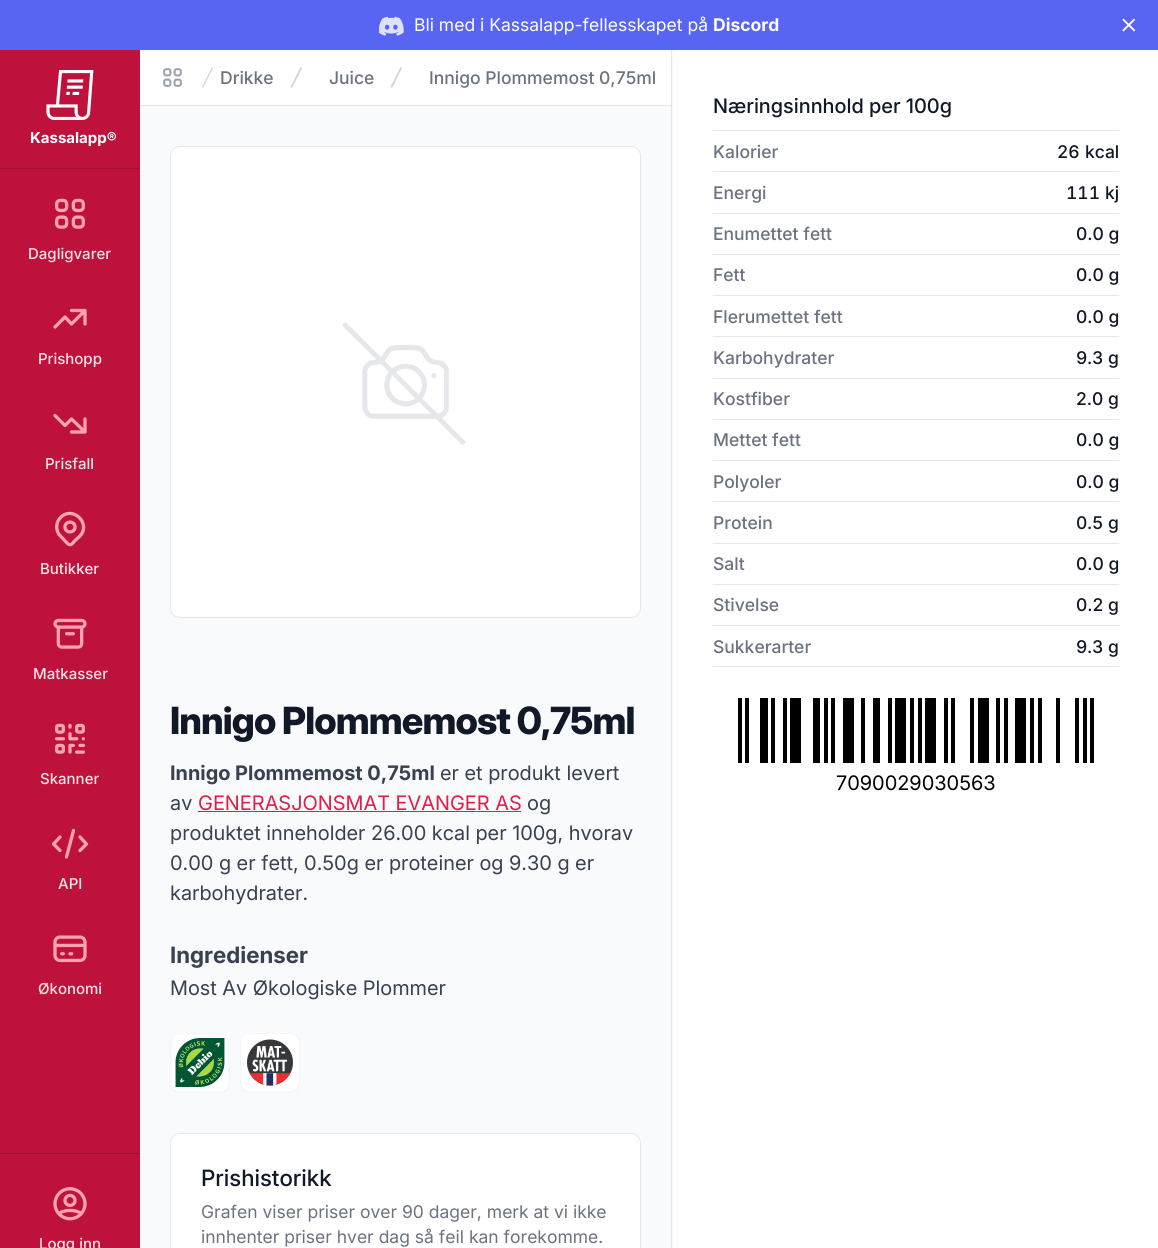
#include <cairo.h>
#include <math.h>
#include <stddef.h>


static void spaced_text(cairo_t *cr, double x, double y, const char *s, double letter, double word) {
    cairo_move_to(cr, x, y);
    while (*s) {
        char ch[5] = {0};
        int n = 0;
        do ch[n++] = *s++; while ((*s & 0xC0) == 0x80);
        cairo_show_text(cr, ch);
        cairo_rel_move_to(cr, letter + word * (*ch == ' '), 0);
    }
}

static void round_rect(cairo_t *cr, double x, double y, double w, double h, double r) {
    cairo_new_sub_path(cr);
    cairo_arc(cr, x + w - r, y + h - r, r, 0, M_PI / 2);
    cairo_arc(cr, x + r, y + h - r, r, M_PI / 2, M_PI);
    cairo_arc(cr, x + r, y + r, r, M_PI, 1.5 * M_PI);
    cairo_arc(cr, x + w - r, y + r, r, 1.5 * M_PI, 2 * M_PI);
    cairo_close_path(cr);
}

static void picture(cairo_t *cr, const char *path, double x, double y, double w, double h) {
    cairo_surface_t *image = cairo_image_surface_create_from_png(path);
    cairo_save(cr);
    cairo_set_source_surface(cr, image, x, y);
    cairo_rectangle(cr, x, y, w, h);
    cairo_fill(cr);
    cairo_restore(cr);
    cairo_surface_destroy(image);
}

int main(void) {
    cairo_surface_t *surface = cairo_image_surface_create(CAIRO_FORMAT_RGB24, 1158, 1248);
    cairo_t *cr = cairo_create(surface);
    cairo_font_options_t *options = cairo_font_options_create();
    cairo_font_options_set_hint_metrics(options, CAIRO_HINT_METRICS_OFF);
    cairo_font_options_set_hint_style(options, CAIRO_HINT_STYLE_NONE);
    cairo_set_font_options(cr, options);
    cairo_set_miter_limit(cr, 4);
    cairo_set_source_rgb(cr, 0.976, 0.98, 0.984);
    cairo_paint(cr);
    cairo_set_source_rgb(cr, 0.345, 0.396, 0.949);
    cairo_rectangle(cr, 0, 0, 1158, 50);
    cairo_fill(cr);
    picture(cr, "img1.png", 379, 16, 25, 20);
    cairo_select_font_face(cr, "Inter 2", CAIRO_FONT_SLANT_NORMAL, CAIRO_FONT_WEIGHT_NORMAL);
    cairo_set_font_size(cr, 17.5);
    cairo_set_source_rgb(cr, 1, 1, 1);
    cairo_move_to(cr, 414, 31);
    cairo_show_text(cr, "Bli med i Kassalapp-fellesskapet på");
    cairo_select_font_face(cr, "Inter", CAIRO_FONT_SLANT_NORMAL, CAIRO_FONT_WEIGHT_BOLD);
    cairo_move_to(cr, 713, 31);
    cairo_show_text(cr, "Discord");
    picture(cr, "img2.png", 1122, 18, 13, 14);
    cairo_set_source_rgb(cr, 0.745, 0.071, 0.235);
    cairo_rectangle(cr, 0, 50, 140, 1198);
    cairo_fill(cr);
    picture(cr, "img3.png", 46, 70, 48, 50);
    cairo_set_font_size(cr, 15);
    cairo_set_source_rgb(cr, 1, 1, 1);
    cairo_move_to(cr, 30, 143);
    cairo_show_text(cr, "Kassalapp®");
    cairo_set_source_rgb(cr, 0.624, 0.071, 0.224);
    cairo_rectangle(cr, 0, 168, 140, 1);
    cairo_fill(cr);
    picture(cr, "img4.png", 55, 198, 30, 31);
    cairo_select_font_face(cr, "Inter Medium", CAIRO_FONT_SLANT_NORMAL, CAIRO_FONT_WEIGHT_NORMAL);
    cairo_set_source_rgb(cr, 1, 0.894, 0.902);
    cairo_move_to(cr, 28, 259);
    cairo_show_text(cr, "Dagligvarer");
    cairo_new_path(cr);
    cairo_move_to(cr, 71.5, 310.5);
    cairo_line_to(cr, 85, 310.5);
    cairo_move_to(cr, 85, 310.5);
    cairo_line_to(cr, 85, 324);
    cairo_move_to(cr, 85, 310.5);
    cairo_line_to(cr, 71.5, 324);
    cairo_line_to(cr, 65, 317);
    cairo_line_to(cr, 55, 327);
    cairo_set_source_rgb(cr, 0.992, 0.643, 0.686);
    cairo_set_line_width(cr, 3.3);
    cairo_set_line_cap(cr, CAIRO_LINE_CAP_ROUND);
    cairo_set_line_join(cr, CAIRO_LINE_JOIN_ROUND);
    cairo_stroke(cr);
    cairo_set_source_rgb(cr, 1, 0.894, 0.902);
    cairo_move_to(cr, 38, 364);
    cairo_show_text(cr, "Prishopp");
    cairo_new_path(cr);
    cairo_move_to(cr, 71.5, 432);
    cairo_line_to(cr, 85, 432);
    cairo_move_to(cr, 85, 432);
    cairo_line_to(cr, 85, 419);
    cairo_move_to(cr, 85, 432);
    cairo_line_to(cr, 71.5, 419);
    cairo_line_to(cr, 65, 425.5);
    cairo_line_to(cr, 55, 415.5);
    cairo_set_source_rgb(cr, 0.992, 0.643, 0.686);
    cairo_stroke(cr);
    cairo_set_source_rgb(cr, 1, 0.894, 0.902);
    cairo_move_to(cr, 45, 469);
    cairo_show_text(cr, "Prisfall");
    cairo_new_path(cr);
    cairo_move_to(cr, 79.5, 536.5);
    cairo_line_to(cr, 74.5, 541);
    cairo_curve_to(cr, 73, 543, 71, 546, 68, 544);
    cairo_line_to(cr, 59, 534.5);
    cairo_curve_to(cr, 55.5, 529, 56, 522, 60.5, 517.5);
    cairo_curve_to(cr, 73, 505, 92, 524, 79.5, 536.5);
    cairo_close_path(cr);
    cairo_move_to(cr, 75, 527);
    cairo_curve_to(cr, 75, 533.5, 65, 533.5, 65, 527);
    cairo_curve_to(cr, 65, 520.5, 75, 520.5, 75, 527);
    cairo_close_path(cr);
    cairo_set_source_rgb(cr, 0.992, 0.643, 0.686);
    cairo_stroke(cr);
    cairo_set_source_rgb(cr, 1, 0.894, 0.902);
    cairo_move_to(cr, 40, 574);
    cairo_show_text(cr, "Butikker");
    picture(cr, "img5.png", 53, 618, 34, 31);
    cairo_move_to(cr, 33, 679);
    cairo_show_text(cr, "Matkasser");
    picture(cr, "img6.png", 55, 723, 30, 31);
    cairo_move_to(cr, 40, 784);
    cairo_show_text(cr, "Skanner");
    cairo_new_path(cr);
    cairo_move_to(cr, 66.5, 857);
    cairo_line_to(cr, 73.5, 830.5);
    cairo_move_to(cr, 80, 837);
    cairo_line_to(cr, 86.5, 844);
    cairo_line_to(cr, 80, 850.5);
    cairo_move_to(cr, 60, 850.5);
    cairo_line_to(cr, 53.5, 844);
    cairo_line_to(cr, 60, 837);
    cairo_set_source_rgb(cr, 0.992, 0.643, 0.686);
    cairo_stroke(cr);
    cairo_set_source_rgb(cr, 1, 0.894, 0.902);
    cairo_move_to(cr, 58, 889);
    cairo_show_text(cr, "API");
    picture(cr, "img7.png", 53, 935, 34, 28);
    cairo_move_to(cr, 38, 994);
    cairo_show_text(cr, "Økonomi");
    cairo_set_source_rgb(cr, 0.624, 0.071, 0.224);
    cairo_rectangle(cr, 0, 1153, 140, 1);
    cairo_fill(cr);
    picture(cr, "img8.png", 53, 1187, 34, 34);
    cairo_set_source_rgb(cr, 1, 0.894, 0.902);
    cairo_move_to(cr, 39, 1249);
    cairo_show_text(cr, "Logg inn");
    cairo_set_source_rgb(cr, 1, 1, 1);
    cairo_rectangle(cr, 140, 50, 531, 55);
    cairo_fill(cr);
    cairo_set_source_rgb(cr, 0.898, 0.906, 0.922);
    cairo_rectangle(cr, 140, 105, 531, 1);
    cairo_fill(cr);
    picture(cr, "img9.png", 163, 68, 19, 19);
    cairo_set_source_rgb(cr, 0.82, 0.835, 0.859);
    cairo_new_path(cr);
    cairo_move_to(cr, 202, 87);
    cairo_line_to(cr, 212, 67);
    cairo_line_to(cr, 213, 68);
    cairo_line_to(cr, 203, 88);
    cairo_close_path(cr);
    cairo_fill(cr);
    cairo_set_font_size(cr, 17.5);
    cairo_set_source_rgb(cr, 0.42, 0.447, 0.502);
    cairo_move_to(cr, 220, 84);
    cairo_show_text(cr, "Drikke");
    cairo_set_source_rgb(cr, 0.82, 0.835, 0.859);
    cairo_new_path(cr);
    cairo_move_to(cr, 290.5, 87);
    cairo_line_to(cr, 300.5, 67);
    cairo_line_to(cr, 302, 68);
    cairo_line_to(cr, 292, 88);
    cairo_close_path(cr);
    cairo_fill(cr);
    cairo_set_source_rgb(cr, 0.42, 0.447, 0.502);
    cairo_move_to(cr, 329, 84);
    cairo_show_text(cr, "Juice");
    cairo_set_source_rgb(cr, 0.82, 0.835, 0.859);
    cairo_new_path(cr);
    cairo_move_to(cr, 390.5, 87);
    cairo_line_to(cr, 400.5, 67);
    cairo_line_to(cr, 402, 68);
    cairo_line_to(cr, 392, 88);
    cairo_close_path(cr);
    cairo_fill(cr);
    cairo_set_source_rgb(cr, 0.42, 0.447, 0.502);
    cairo_move_to(cr, 429, 84);
    cairo_show_text(cr, "Innigo Plommemost 0,75ml");
    cairo_set_source_rgb(cr, 1, 1, 1);
    round_rect(cr, 170.5, 146.5, 470, 471, 9.5);
    cairo_fill_preserve(cr);
    cairo_set_source_rgb(cr, 0.898, 0.906, 0.922);
    cairo_set_line_width(cr, 1);
    cairo_set_line_cap(cr, CAIRO_LINE_CAP_BUTT);
    cairo_set_line_join(cr, CAIRO_LINE_JOIN_MITER);
    cairo_stroke(cr);
    picture(cr, "img10.png", 342, 322, 124, 123);
    cairo_select_font_face(cr, "Inter ExtraBold", CAIRO_FONT_SLANT_NORMAL, CAIRO_FONT_WEIGHT_NORMAL);
    cairo_set_font_size(cr, 37.5);
    cairo_set_source_rgb(cr, 0.067, 0.094, 0.153);
    spaced_text(cr, 170, 734, "Innigo Plommemost 0,75ml", -0.9, 0);
    cairo_select_font_face(cr, "Inter 2", CAIRO_FONT_SLANT_NORMAL, CAIRO_FONT_WEIGHT_BOLD);
    cairo_set_font_size(cr, 20);
    cairo_set_source_rgb(cr, 0.216, 0.255, 0.318);
    cairo_move_to(cr, 170, 780);
    cairo_show_text(cr, "Innigo Plommemost 0,75ml");
    cairo_select_font_face(cr, "Inter", CAIRO_FONT_SLANT_NORMAL, CAIRO_FONT_WEIGHT_NORMAL);
    cairo_move_to(cr, 440, 780);
    cairo_show_text(cr, "er et produkt levert");
    cairo_move_to(cr, 170, 810);
    cairo_show_text(cr, "av");
    cairo_set_source_rgb(cr, 0.882, 0.114, 0.282);
    cairo_move_to(cr, 198, 810);
    cairo_show_text(cr, "GENERASJONSMAT EVANGER AS");
    cairo_rectangle(cr, 198, 811, 323, 1);
    cairo_fill(cr);
    cairo_set_source_rgb(cr, 0.216, 0.255, 0.318);
    cairo_move_to(cr, 527, 810);
    cairo_show_text(cr, "og");
    cairo_move_to(cr, 170, 840);
    cairo_show_text(cr, "produktet inneholder 26.00 kcal per 100g, hvorav");
    cairo_move_to(cr, 170, 870);
    cairo_show_text(cr, "0.00 g er fett, 0.50g er proteiner og 9.30 g er");
    cairo_move_to(cr, 170, 900);
    cairo_show_text(cr, "karbohydrater.");
    cairo_select_font_face(cr, "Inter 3", CAIRO_FONT_SLANT_NORMAL, CAIRO_FONT_WEIGHT_BOLD);
    cairo_set_font_size(cr, 22.5);
    cairo_move_to(cr, 170, 963);
    cairo_show_text(cr, "Ingredienser");
    cairo_select_font_face(cr, "Inter", CAIRO_FONT_SLANT_NORMAL, CAIRO_FONT_WEIGHT_NORMAL);
    cairo_set_font_size(cr, 20);
    cairo_move_to(cr, 170, 995);
    cairo_show_text(cr, "Most Av Økologiske Plommer");
    round_rect(cr, 170.5, 1033.5, 59, 59, 9.5);
    cairo_set_source_rgb(cr, 0.953, 0.957, 0.965);
    cairo_stroke(cr);
    picture(cr, "img11.png", 172, 1034, 56, 57);
    round_rect(cr, 240.5, 1033.5, 59, 59, 9.5);
    cairo_stroke(cr);
    picture(cr, "img12.png", 241, 1034, 58, 57);
    cairo_set_source_rgb(cr, 1, 1, 1);
    cairo_new_path(cr);
    cairo_move_to(cr, 180, 1133);
    cairo_line_to(cr, 631, 1133);
    cairo_curve_to(cr, 636.5, 1133, 641, 1137.5, 641, 1143);
    cairo_line_to(cr, 641, 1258);
    cairo_line_to(cr, 170, 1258);
    cairo_line_to(cr, 170, 1143);
    cairo_curve_to(cr, 170, 1137.5, 174.5, 1133, 180, 1133);
    cairo_close_path(cr);
    cairo_fill(cr);
    round_rect(cr, 170.5, 1133.5, 470, 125, 9.5);
    cairo_set_source_rgb(cr, 0.898, 0.906, 0.922);
    cairo_stroke(cr);
    cairo_select_font_face(cr, "Inter 2 Medium", CAIRO_FONT_SLANT_NORMAL, CAIRO_FONT_WEIGHT_NORMAL);
    cairo_set_font_size(cr, 22.5);
    cairo_set_source_rgb(cr, 0.067, 0.094, 0.153);
    cairo_move_to(cr, 201, 1186);
    cairo_show_text(cr, "Prishistorikk");
    cairo_select_font_face(cr, "Inter 2", CAIRO_FONT_SLANT_NORMAL, CAIRO_FONT_WEIGHT_NORMAL);
    cairo_set_font_size(cr, 17.5);
    cairo_set_source_rgb(cr, 0.42, 0.447, 0.502);
    cairo_move_to(cr, 201, 1218);
    cairo_show_text(cr, "Grafen viser priser over 90 dager, merk at vi ikke");
    cairo_move_to(cr, 201, 1243);
    cairo_show_text(cr, "innhenter priser hver dag så feil kan forekomme.");
    cairo_set_source_rgb(cr, 1, 1, 1);
    cairo_rectangle(cr, 673, 50, 485, 1198);
    cairo_fill(cr);
    cairo_set_source_rgb(cr, 0.898, 0.906, 0.922);
    cairo_rectangle(cr, 671, 50, 1, 1198);
    cairo_fill(cr);
    cairo_select_font_face(cr, "Inter 3 Medium", CAIRO_FONT_SLANT_NORMAL, CAIRO_FONT_WEIGHT_NORMAL);
    cairo_set_font_size(cr, 20);
    cairo_set_source_rgb(cr, 0.067, 0.094, 0.153);
    cairo_move_to(cr, 713, 113);
    cairo_show_text(cr, "Næringsinnhold per 100g");
    cairo_set_source_rgb(cr, 0.898, 0.906, 0.922);
    cairo_rectangle(cr, 713, 130, 406, 1);
    cairo_fill(cr);
    cairo_rectangle(cr, 713, 666, 406, 1);
    cairo_fill(cr);
    cairo_select_font_face(cr, "Inter Medium", CAIRO_FONT_SLANT_NORMAL, CAIRO_FONT_WEIGHT_NORMAL);
    cairo_set_font_size(cr, 17.5);
    cairo_set_source_rgb(cr, 0.42, 0.447, 0.502);
    cairo_move_to(cr, 713, 158);
    cairo_show_text(cr, "Kalorier");
    cairo_select_font_face(cr, "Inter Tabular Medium", CAIRO_FONT_SLANT_NORMAL, CAIRO_FONT_WEIGHT_NORMAL);
    cairo_set_source_rgb(cr, 0.067, 0.094, 0.153);
    cairo_move_to(cr, 1057, 158);
    cairo_show_text(cr, "26");
    cairo_select_font_face(cr, "Inter Medium", CAIRO_FONT_SLANT_NORMAL, CAIRO_FONT_WEIGHT_NORMAL);
    cairo_move_to(cr, 1085, 158);
    cairo_show_text(cr, "kcal");
    cairo_set_source_rgb(cr, 0.898, 0.906, 0.922);
    cairo_rectangle(cr, 713, 171, 406, 1);
    cairo_fill(cr);
    cairo_set_source_rgb(cr, 0.42, 0.447, 0.502);
    cairo_move_to(cr, 713, 199);
    cairo_show_text(cr, "Energi");
    cairo_select_font_face(cr, "Inter Tabular Medium", CAIRO_FONT_SLANT_NORMAL, CAIRO_FONT_WEIGHT_NORMAL);
    cairo_set_source_rgb(cr, 0.067, 0.094, 0.153);
    cairo_move_to(cr, 1066, 199);
    cairo_show_text(cr, "111");
    cairo_select_font_face(cr, "Inter Medium", CAIRO_FONT_SLANT_NORMAL, CAIRO_FONT_WEIGHT_NORMAL);
    cairo_move_to(cr, 1105, 199);
    cairo_show_text(cr, "kj");
    cairo_set_source_rgb(cr, 0.898, 0.906, 0.922);
    cairo_rectangle(cr, 713, 213, 406, 1);
    cairo_fill(cr);
    cairo_set_source_rgb(cr, 0.42, 0.447, 0.502);
    cairo_move_to(cr, 713, 240);
    cairo_show_text(cr, "Enumettet fett");
    cairo_set_source_rgb(cr, 0.067, 0.094, 0.153);
    cairo_move_to(cr, 1076, 240);
    cairo_show_text(cr, "0.0 g");
    cairo_set_source_rgb(cr, 0.898, 0.906, 0.922);
    cairo_rectangle(cr, 713, 254, 406, 1);
    cairo_fill(cr);
    cairo_set_source_rgb(cr, 0.42, 0.447, 0.502);
    cairo_move_to(cr, 713, 281);
    cairo_show_text(cr, "Fett");
    cairo_set_source_rgb(cr, 0.067, 0.094, 0.153);
    cairo_move_to(cr, 1076, 281);
    cairo_show_text(cr, "0.0 g");
    cairo_set_source_rgb(cr, 0.898, 0.906, 0.922);
    cairo_rectangle(cr, 713, 295, 406, 1);
    cairo_fill(cr);
    cairo_set_source_rgb(cr, 0.42, 0.447, 0.502);
    cairo_move_to(cr, 713, 323);
    cairo_show_text(cr, "Flerumettet fett");
    cairo_set_source_rgb(cr, 0.067, 0.094, 0.153);
    cairo_move_to(cr, 1076, 323);
    cairo_show_text(cr, "0.0 g");
    cairo_set_source_rgb(cr, 0.898, 0.906, 0.922);
    cairo_rectangle(cr, 713, 336, 406, 1);
    cairo_fill(cr);
    cairo_set_source_rgb(cr, 0.42, 0.447, 0.502);
    cairo_move_to(cr, 713, 364);
    cairo_show_text(cr, "Karbohydrater");
    cairo_select_font_face(cr, "Inter Tabular Medium", CAIRO_FONT_SLANT_NORMAL, CAIRO_FONT_WEIGHT_NORMAL);
    cairo_set_source_rgb(cr, 0.067, 0.094, 0.153);
    cairo_move_to(cr, 1076, 364);
    cairo_show_text(cr, "9.3");
    cairo_select_font_face(cr, "Inter Medium", CAIRO_FONT_SLANT_NORMAL, CAIRO_FONT_WEIGHT_NORMAL);
    cairo_move_to(cr, 1108, 364);
    cairo_show_text(cr, "g");
    cairo_set_source_rgb(cr, 0.898, 0.906, 0.922);
    cairo_rectangle(cr, 713, 378, 406, 1);
    cairo_fill(cr);
    cairo_set_source_rgb(cr, 0.42, 0.447, 0.502);
    cairo_move_to(cr, 713, 405);
    cairo_show_text(cr, "Kostfiber");
    cairo_set_source_rgb(cr, 0.067, 0.094, 0.153);
    cairo_move_to(cr, 1076, 405);
    cairo_show_text(cr, "2.0 g");
    cairo_set_source_rgb(cr, 0.898, 0.906, 0.922);
    cairo_rectangle(cr, 713, 419, 406, 1);
    cairo_fill(cr);
    cairo_set_source_rgb(cr, 0.42, 0.447, 0.502);
    cairo_move_to(cr, 713, 446);
    cairo_show_text(cr, "Mettet fett");
    cairo_set_source_rgb(cr, 0.067, 0.094, 0.153);
    cairo_move_to(cr, 1076, 446);
    cairo_show_text(cr, "0.0 g");
    cairo_set_source_rgb(cr, 0.898, 0.906, 0.922);
    cairo_rectangle(cr, 713, 460, 406, 1);
    cairo_fill(cr);
    cairo_set_source_rgb(cr, 0.42, 0.447, 0.502);
    cairo_move_to(cr, 713, 488);
    cairo_show_text(cr, "Polyoler");
    cairo_set_source_rgb(cr, 0.067, 0.094, 0.153);
    cairo_move_to(cr, 1076, 488);
    cairo_show_text(cr, "0.0 g");
    cairo_set_source_rgb(cr, 0.898, 0.906, 0.922);
    cairo_rectangle(cr, 713, 501, 406, 1);
    cairo_fill(cr);
    cairo_set_source_rgb(cr, 0.42, 0.447, 0.502);
    cairo_move_to(cr, 713, 529);
    cairo_show_text(cr, "Protein");
    cairo_select_font_face(cr, "Inter Tabular Medium", CAIRO_FONT_SLANT_NORMAL, CAIRO_FONT_WEIGHT_NORMAL);
    cairo_set_source_rgb(cr, 0.067, 0.094, 0.153);
    cairo_move_to(cr, 1076, 529);
    cairo_show_text(cr, "0.5");
    cairo_select_font_face(cr, "Inter Medium", CAIRO_FONT_SLANT_NORMAL, CAIRO_FONT_WEIGHT_NORMAL);
    cairo_move_to(cr, 1108, 529);
    cairo_show_text(cr, "g");
    cairo_set_source_rgb(cr, 0.898, 0.906, 0.922);
    cairo_rectangle(cr, 713, 543, 406, 1);
    cairo_fill(cr);
    cairo_set_source_rgb(cr, 0.42, 0.447, 0.502);
    cairo_move_to(cr, 713, 570);
    cairo_show_text(cr, "Salt");
    cairo_set_source_rgb(cr, 0.067, 0.094, 0.153);
    cairo_move_to(cr, 1076, 570);
    cairo_show_text(cr, "0.0 g");
    cairo_set_source_rgb(cr, 0.898, 0.906, 0.922);
    cairo_rectangle(cr, 713, 584, 406, 1);
    cairo_fill(cr);
    cairo_set_source_rgb(cr, 0.42, 0.447, 0.502);
    cairo_move_to(cr, 713, 611);
    cairo_show_text(cr, "Stivelse");
    cairo_set_source_rgb(cr, 0.067, 0.094, 0.153);
    cairo_move_to(cr, 1076, 611);
    cairo_show_text(cr, "0.2 g");
    cairo_set_source_rgb(cr, 0.898, 0.906, 0.922);
    cairo_rectangle(cr, 713, 625, 406, 1);
    cairo_fill(cr);
    cairo_set_source_rgb(cr, 0.42, 0.447, 0.502);
    cairo_move_to(cr, 713, 653);
    cairo_show_text(cr, "Sukkerarter");
    cairo_select_font_face(cr, "Inter Tabular Medium", CAIRO_FONT_SLANT_NORMAL, CAIRO_FONT_WEIGHT_NORMAL);
    cairo_set_source_rgb(cr, 0.067, 0.094, 0.153);
    cairo_move_to(cr, 1076, 653);
    cairo_show_text(cr, "9.3");
    cairo_select_font_face(cr, "Inter Medium", CAIRO_FONT_SLANT_NORMAL, CAIRO_FONT_WEIGHT_NORMAL);
    cairo_move_to(cr, 1108, 653);
    cairo_show_text(cr, "g");
    cairo_set_source_rgb(cr, 0, 0, 0);
    cairo_rectangle(cr, 738, 698, 4, 65);
    cairo_fill(cr);
    cairo_rectangle(cr, 745, 698, 4, 65);
    cairo_fill(cr);
    cairo_rectangle(cr, 760, 698, 8, 65);
    cairo_fill(cr);
    cairo_rectangle(cr, 771, 698, 4, 65);
    cairo_fill(cr);
    cairo_rectangle(cr, 783, 698, 4, 65);
    cairo_fill(cr);
    cairo_rectangle(cr, 790, 698, 11, 65);
    cairo_fill(cr);
    cairo_rectangle(cr, 813, 698, 7, 65);
    cairo_fill(cr);
    cairo_rectangle(cr, 824, 698, 4, 65);
    cairo_fill(cr);
    cairo_rectangle(cr, 831, 698, 4, 65);
    cairo_fill(cr);
    cairo_rectangle(cr, 843, 698, 11, 65);
    cairo_fill(cr);
    cairo_rectangle(cr, 861, 698, 4, 65);
    cairo_fill(cr);
    cairo_rectangle(cr, 873, 698, 7, 65);
    cairo_fill(cr);
    cairo_rectangle(cr, 888, 698, 4, 65);
    cairo_fill(cr);
    cairo_rectangle(cr, 895, 698, 11, 65);
    cairo_fill(cr);
    cairo_rectangle(cr, 910, 698, 4, 65);
    cairo_fill(cr);
    cairo_rectangle(cr, 918, 698, 4, 65);
    cairo_fill(cr);
    cairo_rectangle(cr, 925, 698, 11, 65);
    cairo_fill(cr);
    cairo_rectangle(cr, 944, 698, 4, 65);
    cairo_fill(cr);
    cairo_rectangle(cr, 951, 698, 4, 65);
    cairo_fill(cr);
    cairo_rectangle(cr, 970, 698, 4, 65);
    cairo_fill(cr);
    cairo_rectangle(cr, 978, 698, 11, 65);
    cairo_fill(cr);
    cairo_rectangle(cr, 996, 698, 4, 65);
    cairo_fill(cr);
    cairo_rectangle(cr, 1004, 698, 4, 65);
    cairo_fill(cr);
    cairo_rectangle(cr, 1015, 698, 11, 65);
    cairo_fill(cr);
    cairo_rectangle(cr, 1030, 698, 4, 65);
    cairo_fill(cr);
    cairo_rectangle(cr, 1038, 698, 4, 65);
    cairo_fill(cr);
    cairo_rectangle(cr, 1056, 698, 4, 65);
    cairo_fill(cr);
    cairo_rectangle(cr, 1075, 698, 4, 65);
    cairo_fill(cr);
    cairo_rectangle(cr, 1083, 698, 4, 65);
    cairo_fill(cr);
    cairo_rectangle(cr, 1090, 698, 4, 65);
    cairo_fill(cr);
    cairo_select_font_face(cr, "Inter", CAIRO_FONT_SLANT_NORMAL, CAIRO_FONT_WEIGHT_NORMAL);
    cairo_set_font_size(cr, 20);
    cairo_move_to(cr, 836, 790);
    cairo_show_text(cr, "7090029030563");
    cairo_surface_write_to_png(surface, "page.png");
    cairo_font_options_destroy(options);
    cairo_destroy(cr);
    cairo_surface_destroy(surface);
    return 0;
}
